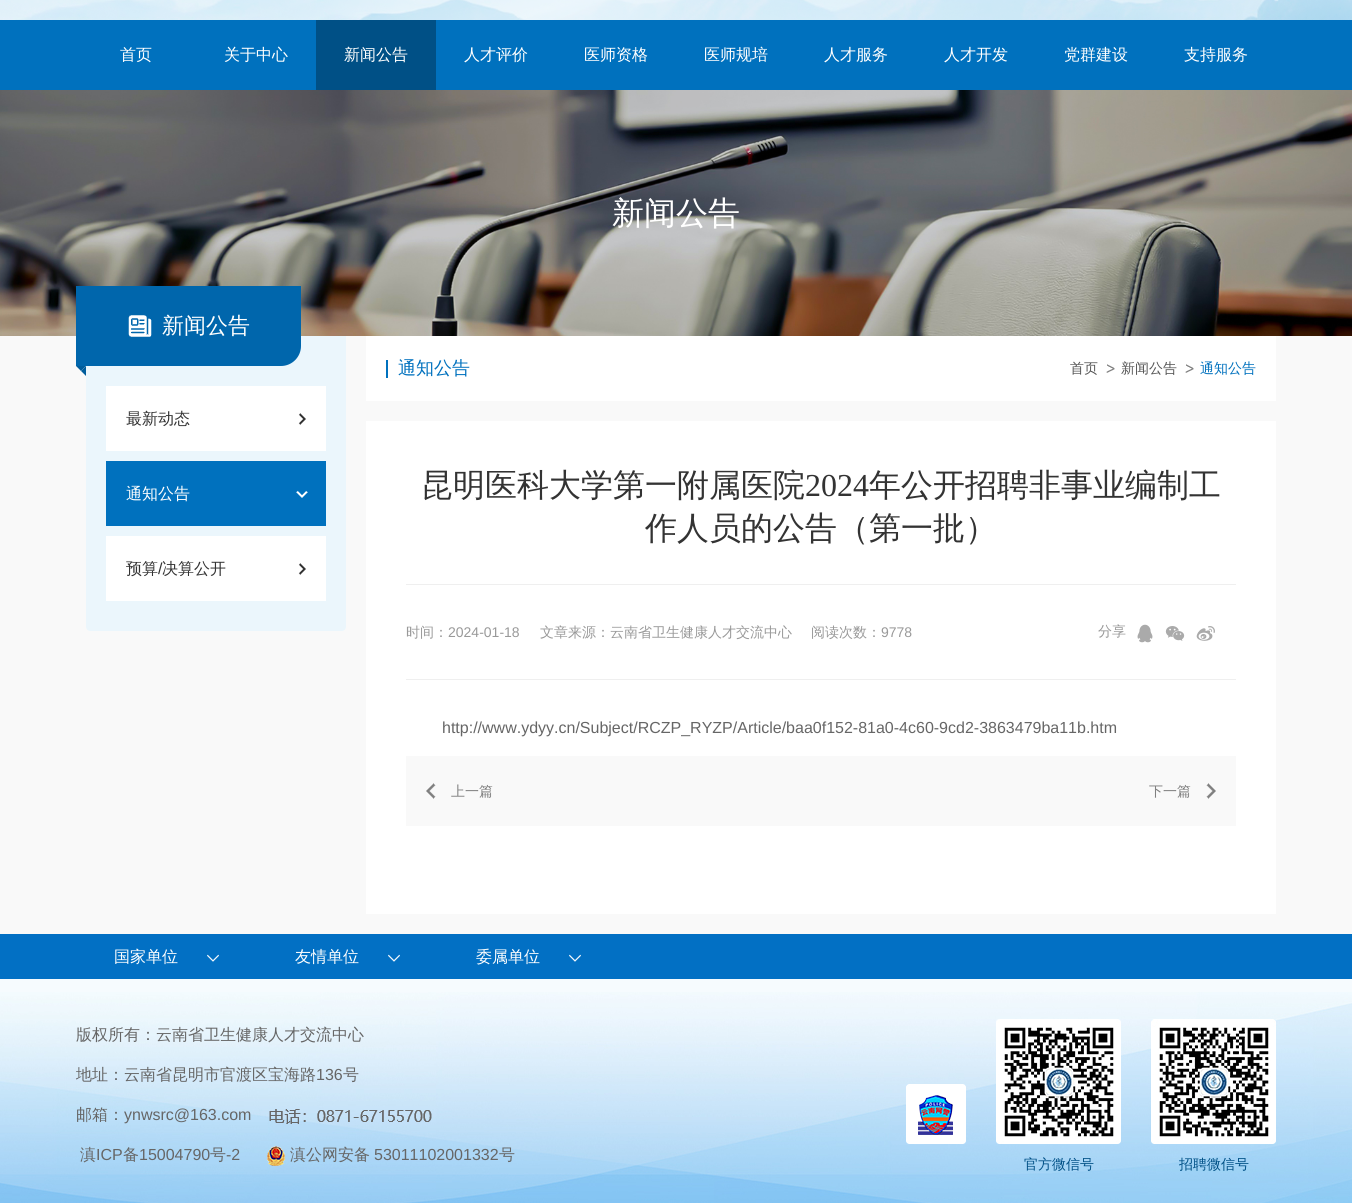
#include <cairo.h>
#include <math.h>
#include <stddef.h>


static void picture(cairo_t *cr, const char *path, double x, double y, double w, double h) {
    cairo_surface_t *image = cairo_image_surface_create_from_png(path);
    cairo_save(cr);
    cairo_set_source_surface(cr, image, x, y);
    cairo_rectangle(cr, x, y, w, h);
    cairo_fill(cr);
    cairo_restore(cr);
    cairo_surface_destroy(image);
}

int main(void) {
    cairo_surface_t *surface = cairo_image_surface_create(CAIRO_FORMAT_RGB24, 1352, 1203);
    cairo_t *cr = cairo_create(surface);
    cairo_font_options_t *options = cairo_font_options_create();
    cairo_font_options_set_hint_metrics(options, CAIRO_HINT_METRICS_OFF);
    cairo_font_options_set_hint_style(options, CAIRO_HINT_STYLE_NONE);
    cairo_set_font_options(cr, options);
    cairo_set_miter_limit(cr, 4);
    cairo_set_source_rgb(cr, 0.976, 0.976, 0.976);
    cairo_paint(cr);
    picture(cr, "img1.png", 0, 0, 1352, 20);
    cairo_set_source_rgb(cr, 0, 0.443, 0.745);
    cairo_rectangle(cr, 0, 20, 1352, 70);
    cairo_fill(cr);
    cairo_set_source_rgb(cr, 0, 0.314, 0.525);
    cairo_rectangle(cr, 316, 20, 120, 70);
    cairo_fill(cr);
    cairo_select_font_face(cr, "WenQuanYi Zen Hei Medium", CAIRO_FONT_SLANT_NORMAL, CAIRO_FONT_WEIGHT_NORMAL);
    cairo_set_font_size(cr, 16);
    cairo_set_source_rgb(cr, 1, 1, 1);
    cairo_move_to(cr, 120, 60);
    cairo_show_text(cr, "首页");
    cairo_move_to(cr, 224, 60);
    cairo_show_text(cr, "关于中心");
    cairo_move_to(cr, 344, 60);
    cairo_show_text(cr, "新闻公告");
    cairo_move_to(cr, 464, 60);
    cairo_show_text(cr, "人才评价");
    cairo_move_to(cr, 584, 60);
    cairo_show_text(cr, "医师资格");
    cairo_move_to(cr, 704, 60);
    cairo_show_text(cr, "医师规培");
    cairo_move_to(cr, 824, 60);
    cairo_show_text(cr, "人才服务");
    cairo_move_to(cr, 944, 60);
    cairo_show_text(cr, "人才开发");
    cairo_move_to(cr, 1064, 60);
    cairo_show_text(cr, "党群建设");
    cairo_move_to(cr, 1184, 60);
    cairo_show_text(cr, "支持服务");
    picture(cr, "img2.png", 0, 90, 1352, 246);
    cairo_set_font_size(cr, 32);
    cairo_move_to(cr, 612, 224);
    cairo_show_text(cr, "新闻公告");
    cairo_set_source_rgb(cr, 0.918, 0.961, 0.988);
    cairo_new_path(cr);
    cairo_move_to(cr, 86, 336);
    cairo_line_to(cr, 346, 336);
    cairo_line_to(cr, 346, 627);
    cairo_curve_to(cr, 346, 629, 344, 631, 342, 631);
    cairo_line_to(cr, 90, 631);
    cairo_curve_to(cr, 88, 631, 86, 629, 86, 627);
    cairo_close_path(cr);
    cairo_fill(cr);
    cairo_set_source_rgb(cr, 0, 0.4, 0.675);
    cairo_new_path(cr);
    cairo_move_to(cr, 76, 286);
    cairo_line_to(cr, 301, 286);
    cairo_line_to(cr, 301, 346);
    cairo_curve_to(cr, 301, 357, 292, 366, 281, 366);
    cairo_line_to(cr, 76, 366);
    cairo_close_path(cr);
    cairo_fill(cr);
    picture(cr, "img3.png", 128, 315, 24, 22);
    cairo_set_font_size(cr, 22);
    cairo_set_source_rgb(cr, 1, 1, 1);
    cairo_move_to(cr, 162, 333);
    cairo_show_text(cr, "新闻公告");
    cairo_set_source_rgb(cr, 0, 0.365, 0.612);
    cairo_new_path(cr);
    cairo_move_to(cr, 76, 366);
    cairo_line_to(cr, 86, 366);
    cairo_line_to(cr, 81, 371);
    cairo_close_path(cr);
    cairo_fill(cr);
    cairo_new_path(cr);
    cairo_move_to(cr, 86, 366);
    cairo_line_to(cr, 86, 376);
    cairo_line_to(cr, 81, 371);
    cairo_close_path(cr);
    cairo_fill(cr);
    cairo_set_source_rgb(cr, 1, 1, 1);
    cairo_rectangle(cr, 106, 386, 220, 65);
    cairo_fill(cr);
    cairo_set_font_size(cr, 16);
    cairo_set_source_rgb(cr, 0.2, 0.2, 0.2);
    cairo_move_to(cr, 126, 424);
    cairo_show_text(cr, "最新动态");
    picture(cr, "img4.png", 298, 413, 8, 12);
    cairo_set_source_rgb(cr, 0, 0.443, 0.745);
    cairo_rectangle(cr, 106, 461, 220, 65);
    cairo_fill(cr);
    cairo_set_source_rgb(cr, 1, 1, 1);
    cairo_move_to(cr, 126, 499);
    cairo_show_text(cr, "通知公告");
    picture(cr, "img5.png", 296, 490, 12, 8);
    cairo_rectangle(cr, 106, 536, 220, 65);
    cairo_fill(cr);
    cairo_set_source_rgb(cr, 0.2, 0.2, 0.2);
    cairo_move_to(cr, 126, 574);
    cairo_show_text(cr, "预算");
    cairo_select_font_face(cr, "Liberation Sans", CAIRO_FONT_SLANT_NORMAL, CAIRO_FONT_WEIGHT_NORMAL);
    cairo_move_to(cr, 158, 574);
    cairo_show_text(cr, "/");
    cairo_select_font_face(cr, "WenQuanYi Zen Hei Medium", CAIRO_FONT_SLANT_NORMAL, CAIRO_FONT_WEIGHT_NORMAL);
    cairo_move_to(cr, 162, 574);
    cairo_show_text(cr, "决算公开");
    picture(cr, "img4.png", 298, 563, 8, 12);
    cairo_set_source_rgb(cr, 1, 1, 1);
    cairo_rectangle(cr, 366, 336, 910, 65);
    cairo_fill(cr);
    cairo_set_source_rgb(cr, 0, 0.443, 0.745);
    cairo_rectangle(cr, 386, 360, 2, 18);
    cairo_fill(cr);
    cairo_set_font_size(cr, 18);
    cairo_move_to(cr, 398, 374);
    cairo_show_text(cr, "通知公告");
    cairo_set_font_size(cr, 14);
    cairo_set_source_rgb(cr, 0.333, 0.333, 0.333);
    cairo_move_to(cr, 1070, 373);
    cairo_show_text(cr, "首页");
    picture(cr, "img6.png", 1106, 364, 9, 9);
    cairo_move_to(cr, 1121, 373);
    cairo_show_text(cr, "新闻公告");
    picture(cr, "img6.png", 1185, 364, 9, 9);
    cairo_set_source_rgb(cr, 0, 0.443, 0.745);
    cairo_move_to(cr, 1200, 373);
    cairo_show_text(cr, "通知公告");
    cairo_set_source_rgb(cr, 1, 1, 1);
    cairo_rectangle(cr, 366, 421, 910, 493);
    cairo_fill(cr);
    cairo_set_source_rgb(cr, 0.937, 0.937, 0.937);
    cairo_rectangle(cr, 406, 584, 830, 1);
    cairo_fill(cr);
    cairo_set_font_size(cr, 32);
    cairo_set_source_rgb(cr, 0.2, 0.2, 0.2);
    cairo_move_to(cr, 421, 496);
    cairo_show_text(cr, "昆明医科大学第一附属医院");
    cairo_select_font_face(cr, "Liberation Serif", CAIRO_FONT_SLANT_NORMAL, CAIRO_FONT_WEIGHT_NORMAL);
    cairo_move_to(cr, 805, 496);
    cairo_show_text(cr, "2024");
    cairo_select_font_face(cr, "WenQuanYi Zen Hei Medium", CAIRO_FONT_SLANT_NORMAL, CAIRO_FONT_WEIGHT_NORMAL);
    cairo_move_to(cr, 869, 496);
    cairo_show_text(cr, "年公开招聘非事业编制工");
    cairo_move_to(cr, 645, 539);
    cairo_show_text(cr, "作人员的公告（第一批）");
    cairo_set_source_rgb(cr, 0.937, 0.937, 0.937);
    cairo_rectangle(cr, 406, 679, 830, 1);
    cairo_fill(cr);
    cairo_set_font_size(cr, 14);
    cairo_set_source_rgb(cr, 0.6, 0.6, 0.6);
    cairo_move_to(cr, 406, 637);
    cairo_show_text(cr, "时间：");
    cairo_select_font_face(cr, "Liberation Sans", CAIRO_FONT_SLANT_NORMAL, CAIRO_FONT_WEIGHT_NORMAL);
    cairo_move_to(cr, 448, 637);
    cairo_show_text(cr, "2024-01-18");
    cairo_select_font_face(cr, "WenQuanYi Zen Hei Medium", CAIRO_FONT_SLANT_NORMAL, CAIRO_FONT_WEIGHT_NORMAL);
    cairo_move_to(cr, 540, 637);
    cairo_show_text(cr, "文章来源：云南省卫生健康人才交流中心");
    cairo_move_to(cr, 811, 637);
    cairo_show_text(cr, "阅读次数：");
    cairo_select_font_face(cr, "Liberation Sans", CAIRO_FONT_SLANT_NORMAL, CAIRO_FONT_WEIGHT_NORMAL);
    cairo_move_to(cr, 881, 637);
    cairo_show_text(cr, "9778");
    cairo_select_font_face(cr, "WenQuanYi Zen Hei Medium", CAIRO_FONT_SLANT_NORMAL, CAIRO_FONT_WEIGHT_NORMAL);
    cairo_move_to(cr, 1098, 636);
    cairo_show_text(cr, "分享");
    picture(cr, "img7.png", 1137, 624, 16, 19);
    picture(cr, "img8.png", 1165, 626, 20, 15);
    picture(cr, "img9.png", 1196, 626, 19, 15);
    cairo_select_font_face(cr, "Liberation Sans", CAIRO_FONT_SLANT_NORMAL, CAIRO_FONT_WEIGHT_NORMAL);
    cairo_set_font_size(cr, 16);
    cairo_set_source_rgb(cr, 0.4, 0.4, 0.4);
    cairo_move_to(cr, 442, 733);
    cairo_show_text(cr, "http://www.ydyy.cn/Subject/RCZP_RYZP/Article/baa0f152-81a0-4c60-9cd2-3863479ba11b.htm");
    cairo_set_source_rgb(cr, 0.976, 0.976, 0.976);
    cairo_rectangle(cr, 406, 756, 830, 70);
    cairo_fill(cr);
    picture(cr, "img10.png", 426, 783, 10, 16);
    cairo_select_font_face(cr, "WenQuanYi Zen Hei Medium", CAIRO_FONT_SLANT_NORMAL, CAIRO_FONT_WEIGHT_NORMAL);
    cairo_set_font_size(cr, 14);
    cairo_set_source_rgb(cr, 0.502, 0.502, 0.502);
    cairo_move_to(cr, 451, 796);
    cairo_show_text(cr, "上一篇");
    picture(cr, "img11.png", 1206, 783, 10, 16);
    cairo_move_to(cr, 1149, 796);
    cairo_show_text(cr, "下一篇");
    cairo_set_source_rgb(cr, 0.008, 0.439, 0.769);
    cairo_rectangle(cr, 0, 934, 1352, 45);
    cairo_fill(cr);
    cairo_set_font_size(cr, 16);
    cairo_set_source_rgb(cr, 1, 1, 1);
    cairo_move_to(cr, 114, 962);
    cairo_show_text(cr, "国家单位");
    picture(cr, "img12.png", 207, 954, 12, 8);
    cairo_move_to(cr, 295, 962);
    cairo_show_text(cr, "友情单位");
    picture(cr, "img12.png", 388, 954, 12, 8);
    cairo_move_to(cr, 476, 962);
    cairo_show_text(cr, "委属单位");
    picture(cr, "img12.png", 569, 954, 12, 8);
    cairo_set_source_rgb(cr, 0.961, 0.984, 0.996);
    cairo_rectangle(cr, 0, 979, 1352, 13);
    cairo_fill(cr);
    picture(cr, "img13.png", 0, 992, 1352, 211);
    cairo_set_source_rgb(cr, 0.4, 0.4, 0.4);
    cairo_move_to(cr, 76, 1040);
    cairo_show_text(cr, "版权所有：云南省卫生健康人才交流中心");
    cairo_move_to(cr, 76, 1080);
    cairo_show_text(cr, "地址：云南省昆明市官渡区宝海路");
    cairo_select_font_face(cr, "Liberation Sans", CAIRO_FONT_SLANT_NORMAL, CAIRO_FONT_WEIGHT_NORMAL);
    cairo_move_to(cr, 316, 1080);
    cairo_show_text(cr, "136");
    cairo_select_font_face(cr, "WenQuanYi Zen Hei Medium", CAIRO_FONT_SLANT_NORMAL, CAIRO_FONT_WEIGHT_NORMAL);
    cairo_move_to(cr, 343, 1080);
    cairo_show_text(cr, "号");
    cairo_move_to(cr, 76, 1120);
    cairo_show_text(cr, "邮箱：");
    cairo_select_font_face(cr, "Liberation Sans", CAIRO_FONT_SLANT_NORMAL, CAIRO_FONT_WEIGHT_NORMAL);
    cairo_move_to(cr, 124, 1120);
    cairo_show_text(cr, "ynwsrc@163.com");
    picture(cr, "img14.png", 269, 1109, 163, 15);
    cairo_select_font_face(cr, "WenQuanYi Zen Hei Medium", CAIRO_FONT_SLANT_NORMAL, CAIRO_FONT_WEIGHT_NORMAL);
    cairo_move_to(cr, 80, 1160);
    cairo_show_text(cr, "滇");
    cairo_select_font_face(cr, "Liberation Sans", CAIRO_FONT_SLANT_NORMAL, CAIRO_FONT_WEIGHT_NORMAL);
    cairo_move_to(cr, 96, 1160);
    cairo_show_text(cr, "ICP");
    cairo_select_font_face(cr, "WenQuanYi Zen Hei Medium", CAIRO_FONT_SLANT_NORMAL, CAIRO_FONT_WEIGHT_NORMAL);
    cairo_move_to(cr, 123, 1160);
    cairo_show_text(cr, "备");
    cairo_select_font_face(cr, "Liberation Sans", CAIRO_FONT_SLANT_NORMAL, CAIRO_FONT_WEIGHT_NORMAL);
    cairo_move_to(cr, 139, 1160);
    cairo_show_text(cr, "15004790");
    cairo_select_font_face(cr, "WenQuanYi Zen Hei Medium", CAIRO_FONT_SLANT_NORMAL, CAIRO_FONT_WEIGHT_NORMAL);
    cairo_move_to(cr, 210, 1160);
    cairo_show_text(cr, "号");
    cairo_select_font_face(cr, "Liberation Sans", CAIRO_FONT_SLANT_NORMAL, CAIRO_FONT_WEIGHT_NORMAL);
    cairo_move_to(cr, 226, 1160);
    cairo_show_text(cr, "-2");
    picture(cr, "img15.png", 267, 1146, 18, 20);
    cairo_select_font_face(cr, "WenQuanYi Zen Hei Medium", CAIRO_FONT_SLANT_NORMAL, CAIRO_FONT_WEIGHT_NORMAL);
    cairo_move_to(cr, 290, 1160);
    cairo_show_text(cr, "滇公网安备");
    cairo_select_font_face(cr, "Liberation Sans", CAIRO_FONT_SLANT_NORMAL, CAIRO_FONT_WEIGHT_NORMAL);
    cairo_move_to(cr, 374, 1160);
    cairo_show_text(cr, "53011102001332");
    cairo_select_font_face(cr, "WenQuanYi Zen Hei Medium", CAIRO_FONT_SLANT_NORMAL, CAIRO_FONT_WEIGHT_NORMAL);
    cairo_move_to(cr, 499, 1160);
    cairo_show_text(cr, "号");
    picture(cr, "img16.png", 906, 1084, 60, 60);
    picture(cr, "img17.png", 996, 1019, 125, 125);
    cairo_set_font_size(cr, 14);
    cairo_set_source_rgb(cr, 0, 0.314, 0.525);
    cairo_move_to(cr, 1024, 1169);
    cairo_show_text(cr, "官方微信号");
    picture(cr, "img18.png", 1151, 1019, 125, 125);
    cairo_move_to(cr, 1179, 1169);
    cairo_show_text(cr, "招聘微信号");
    cairo_surface_write_to_png(surface, "page.png");
    cairo_font_options_destroy(options);
    cairo_destroy(cr);
    cairo_surface_destroy(surface);
    return 0;
}
